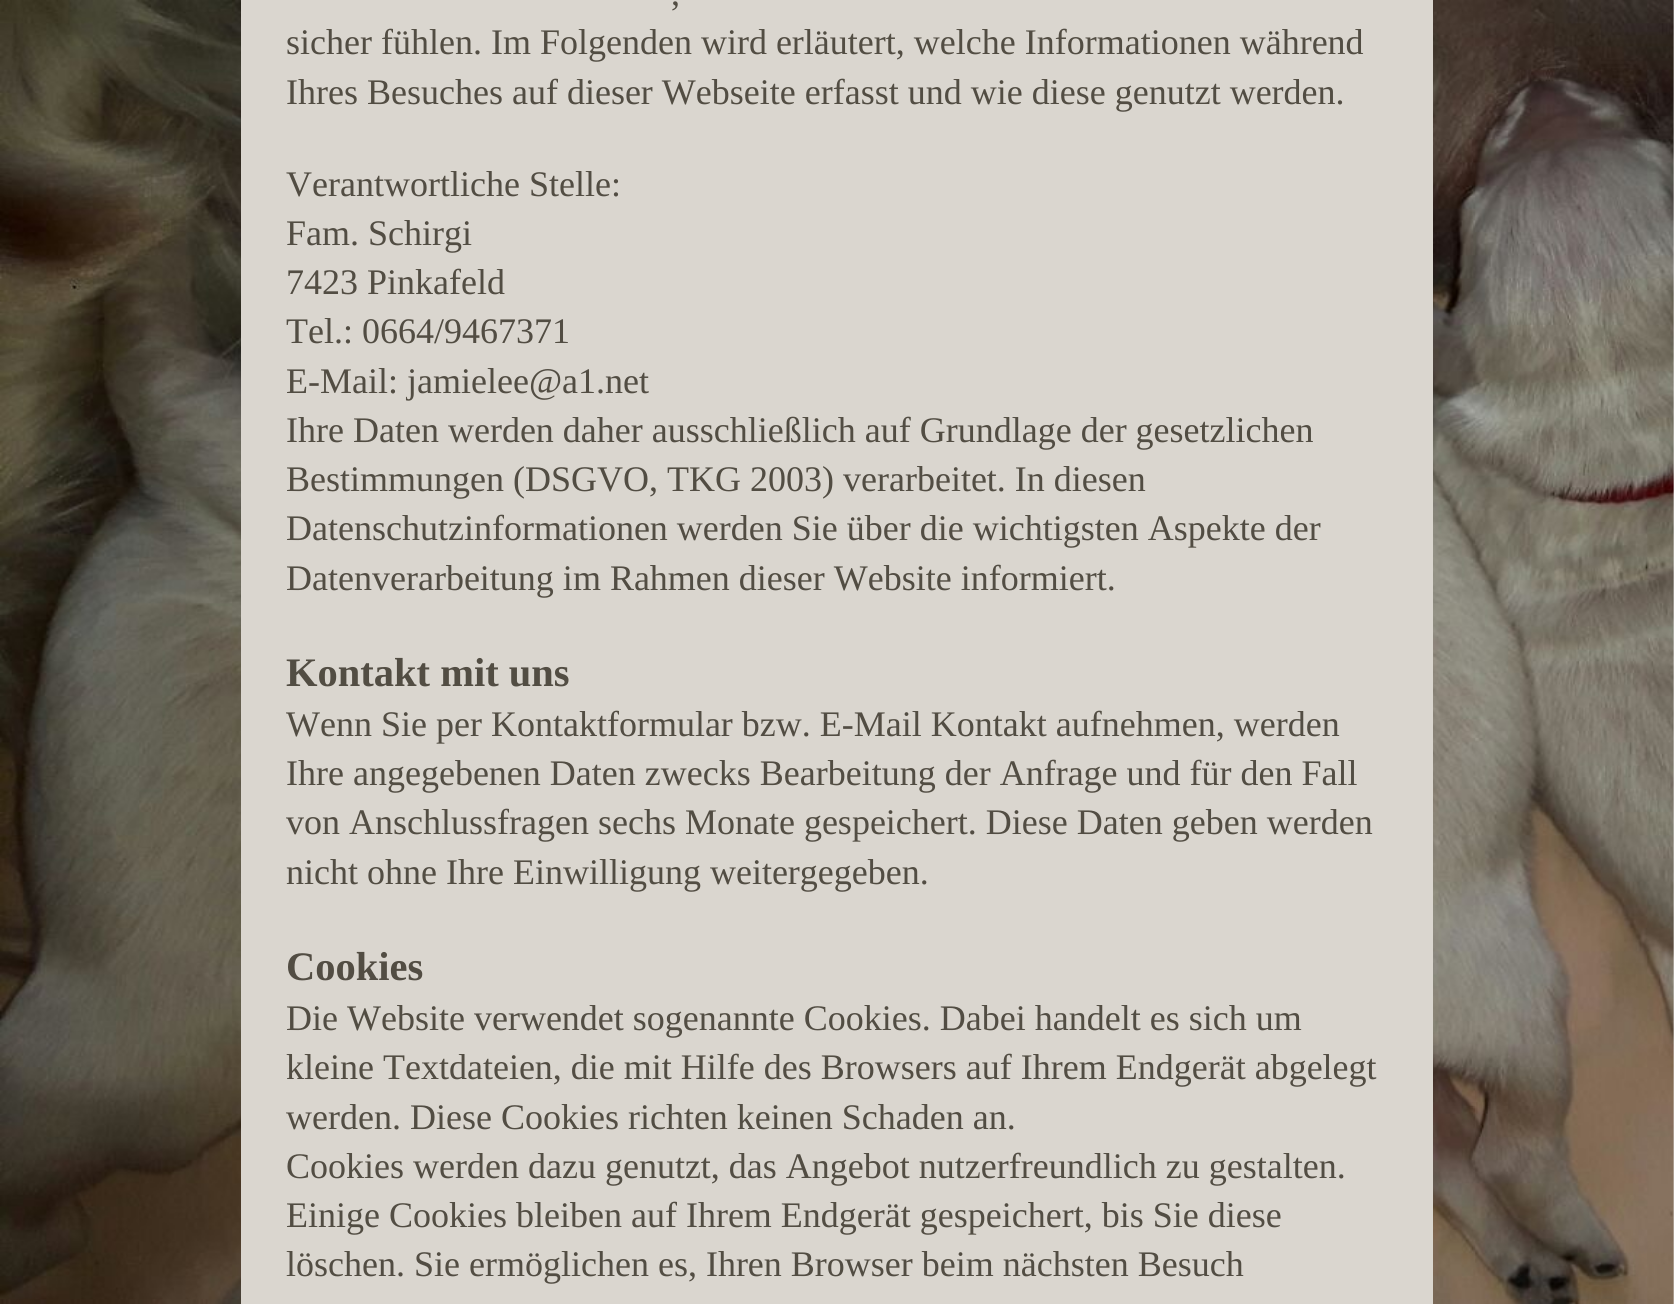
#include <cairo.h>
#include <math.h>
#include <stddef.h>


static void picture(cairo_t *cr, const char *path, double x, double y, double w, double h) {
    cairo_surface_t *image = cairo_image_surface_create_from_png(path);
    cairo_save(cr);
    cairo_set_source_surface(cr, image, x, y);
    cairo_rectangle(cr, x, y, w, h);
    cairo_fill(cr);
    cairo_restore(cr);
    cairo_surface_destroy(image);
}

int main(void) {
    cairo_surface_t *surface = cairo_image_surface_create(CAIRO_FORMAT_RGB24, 1674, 1304);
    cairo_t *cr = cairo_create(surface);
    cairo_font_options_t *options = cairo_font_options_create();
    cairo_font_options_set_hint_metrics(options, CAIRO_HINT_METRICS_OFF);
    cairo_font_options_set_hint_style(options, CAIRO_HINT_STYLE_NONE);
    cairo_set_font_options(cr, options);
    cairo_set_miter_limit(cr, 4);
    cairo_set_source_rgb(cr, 0.961, 0.961, 0.961);
    cairo_paint(cr);
    picture(cr, "img1.png", 0, 0, 1674, 1304);
    cairo_set_source_rgb(cr, 0.855, 0.839, 0.812);
    cairo_rectangle(cr, 241, 0, 1192, 1304);
    cairo_fill(cr);
    cairo_select_font_face(cr, "Liberation Serif", CAIRO_FONT_SLANT_NORMAL, CAIRO_FONT_WEIGHT_NORMAL);
    cairo_set_font_size(cr, 36);
    cairo_set_source_rgb(cr, 0.322, 0.302, 0.263);
    cairo_move_to(cr, 671, 5);
    cairo_show_text(cr, ",");
    cairo_move_to(cr, 286, 54);
    cairo_show_text(cr, "sicher fühlen. Im Folgenden wird erläutert, welche Informationen während");
    cairo_move_to(cr, 286, 104);
    cairo_show_text(cr, "Ihres Besuches auf dieser Webseite erfasst und wie diese genutzt werden.");
    cairo_move_to(cr, 286, 196);
    cairo_show_text(cr, "Verantwortliche Stelle:");
    cairo_move_to(cr, 286, 245);
    cairo_show_text(cr, "Fam. Schirgi");
    cairo_move_to(cr, 286, 294);
    cairo_show_text(cr, "7423 Pinkafeld");
    cairo_move_to(cr, 286, 343);
    cairo_show_text(cr, "Tel.: 0664/9467371");
    cairo_move_to(cr, 286, 393);
    cairo_show_text(cr, "E-Mail: jamielee@a1.net");
    cairo_move_to(cr, 286, 442);
    cairo_show_text(cr, "Ihre Daten werden daher ausschließlich auf Grundlage der gesetzlichen");
    cairo_move_to(cr, 286, 491);
    cairo_show_text(cr, "Bestimmungen (DSGVO, TKG 2003) verarbeitet. In diesen");
    cairo_move_to(cr, 286, 540);
    cairo_show_text(cr, "Datenschutzinformationen werden Sie über die wichtigsten Aspekte der");
    cairo_move_to(cr, 286, 590);
    cairo_show_text(cr, "Datenverarbeitung im Rahmen dieser Website informiert.");
    cairo_select_font_face(cr, "Liberation Serif", CAIRO_FONT_SLANT_NORMAL, CAIRO_FONT_WEIGHT_BOLD);
    cairo_set_font_size(cr, 40.5);
    cairo_move_to(cr, 286, 686);
    cairo_show_text(cr, "Kontakt mit uns");
    cairo_select_font_face(cr, "Liberation Serif", CAIRO_FONT_SLANT_NORMAL, CAIRO_FONT_WEIGHT_NORMAL);
    cairo_set_font_size(cr, 36);
    cairo_move_to(cr, 286, 736);
    cairo_show_text(cr, "Wenn Sie per Kontaktformular bzw. E-Mail Kontakt aufnehmen, werden");
    cairo_move_to(cr, 286, 785);
    cairo_show_text(cr, "Ihre angegebenen Daten zwecks Bearbeitung der Anfrage und für den Fall");
    cairo_move_to(cr, 286, 834);
    cairo_show_text(cr, "von Anschlussfragen sechs Monate gespeichert. Diese Daten geben werden");
    cairo_move_to(cr, 286, 884);
    cairo_show_text(cr, "nicht ohne Ihre Einwilligung weitergegeben.");
    cairo_select_font_face(cr, "Liberation Serif", CAIRO_FONT_SLANT_NORMAL, CAIRO_FONT_WEIGHT_BOLD);
    cairo_set_font_size(cr, 40.5);
    cairo_move_to(cr, 286, 980);
    cairo_show_text(cr, "Cookies");
    cairo_select_font_face(cr, "Liberation Serif", CAIRO_FONT_SLANT_NORMAL, CAIRO_FONT_WEIGHT_NORMAL);
    cairo_set_font_size(cr, 36);
    cairo_move_to(cr, 286, 1030);
    cairo_show_text(cr, "Die Website verwendet sogenannte Cookies. Dabei handelt es sich um");
    cairo_move_to(cr, 286, 1079);
    cairo_show_text(cr, "kleine Textdateien, die mit Hilfe des Browsers auf Ihrem Endgerät abgelegt");
    cairo_move_to(cr, 286, 1129);
    cairo_show_text(cr, "werden. Diese Cookies richten keinen Schaden an.");
    cairo_move_to(cr, 286, 1178);
    cairo_show_text(cr, "Cookies werden dazu genutzt, das Angebot nutzerfreundlich zu gestalten.");
    cairo_move_to(cr, 286, 1227);
    cairo_show_text(cr, "Einige Cookies bleiben auf Ihrem Endgerät gespeichert, bis Sie diese");
    cairo_move_to(cr, 286, 1276);
    cairo_show_text(cr, "löschen. Sie ermöglichen es, Ihren Browser beim nächsten Besuch");
    cairo_surface_write_to_png(surface, "page.png");
    cairo_font_options_destroy(options);
    cairo_destroy(cr);
    cairo_surface_destroy(surface);
    return 0;
}
